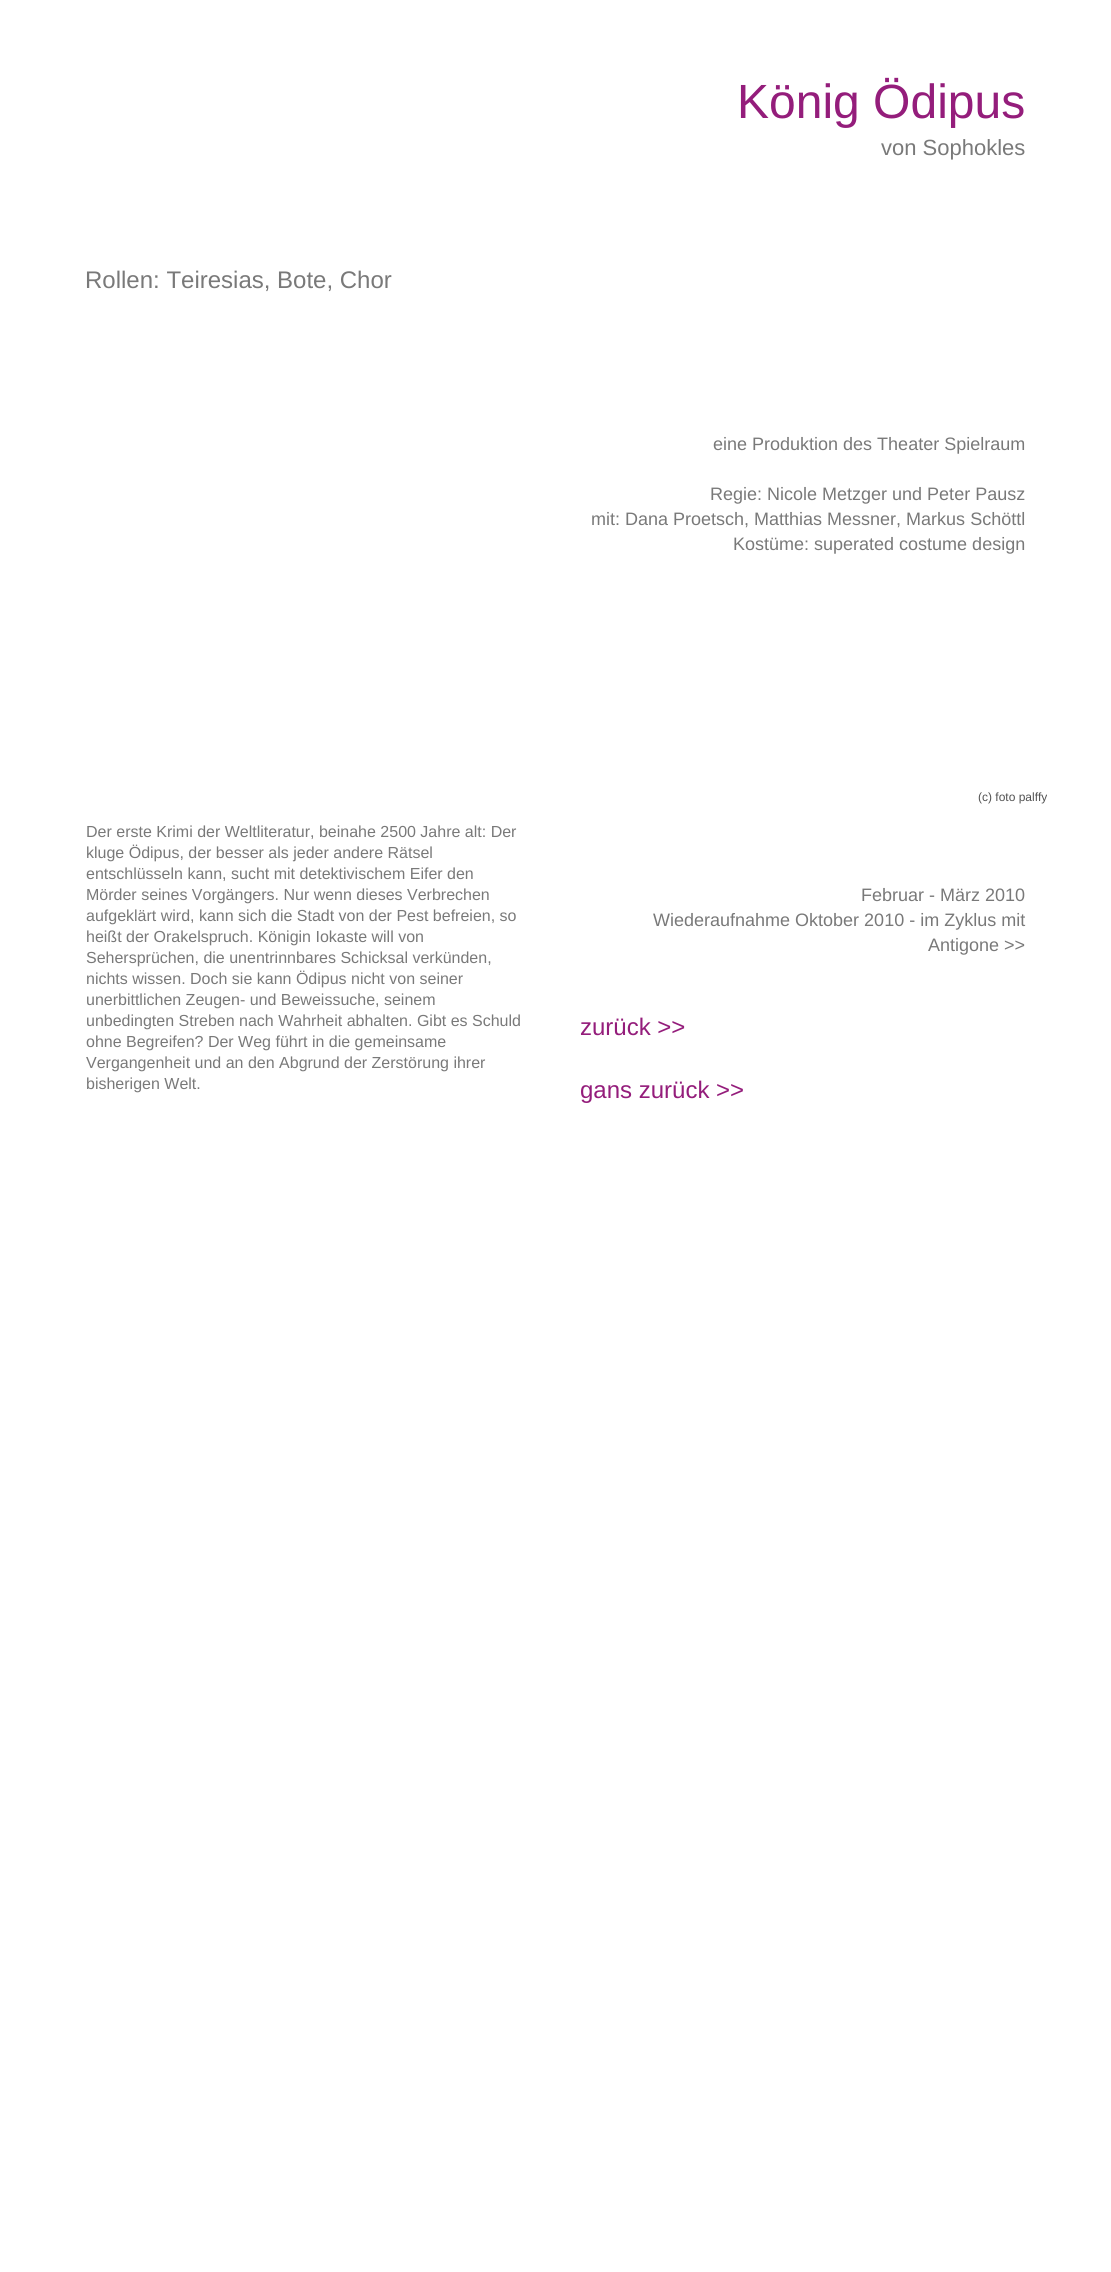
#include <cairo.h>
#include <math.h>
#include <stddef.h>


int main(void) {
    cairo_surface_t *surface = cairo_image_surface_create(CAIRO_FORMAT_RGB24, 1111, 2272);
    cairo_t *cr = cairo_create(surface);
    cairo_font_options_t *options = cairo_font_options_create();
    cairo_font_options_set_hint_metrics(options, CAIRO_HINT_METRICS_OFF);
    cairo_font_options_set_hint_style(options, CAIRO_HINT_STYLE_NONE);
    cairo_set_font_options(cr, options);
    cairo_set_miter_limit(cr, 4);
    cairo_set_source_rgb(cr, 1, 1, 1);
    cairo_paint(cr);
    cairo_select_font_face(cr, "Liberation Sans", CAIRO_FONT_SLANT_NORMAL, CAIRO_FONT_WEIGHT_NORMAL);
    cairo_set_font_size(cr, 48);
    cairo_set_source_rgb(cr, 0.58, 0.114, 0.482);
    cairo_move_to(cr, 737, 118);
    cairo_show_text(cr, "König Ödipus");
    cairo_set_font_size(cr, 22);
    cairo_set_source_rgb(cr, 0.475, 0.475, 0.475);
    cairo_move_to(cr, 881, 155);
    cairo_show_text(cr, "von Sophokles");
    cairo_set_font_size(cr, 24);
    cairo_move_to(cr, 85, 288);
    cairo_show_text(cr, "Rollen: Teiresias, Bote, Chor");
    cairo_set_font_size(cr, 18);
    cairo_move_to(cr, 713, 450);
    cairo_show_text(cr, "eine Produktion des Theater Spielraum");
    cairo_move_to(cr, 710, 500);
    cairo_show_text(cr, "Regie: Nicole Metzger und Peter Pausz");
    cairo_move_to(cr, 591, 525);
    cairo_show_text(cr, "mit: Dana Proetsch, Matthias Messner, Markus Schöttl");
    cairo_move_to(cr, 733, 550);
    cairo_show_text(cr, "Kostüme: superated costume design");
    cairo_set_font_size(cr, 12);
    cairo_set_source_rgb(cr, 0.318, 0.318, 0.318);
    cairo_move_to(cr, 978, 801);
    cairo_show_text(cr, "(c) foto palffy");
    cairo_set_font_size(cr, 16);
    cairo_set_source_rgb(cr, 0.475, 0.475, 0.475);
    cairo_move_to(cr, 86, 837);
    cairo_show_text(cr, "Der erste Krimi der Weltliteratur, beinahe 2500 Jahre alt: Der");
    cairo_move_to(cr, 86, 858);
    cairo_show_text(cr, "kluge Ödipus, der besser als jeder andere Rätsel");
    cairo_move_to(cr, 86, 879);
    cairo_show_text(cr, "entschlüsseln kann, sucht mit detektivischem Eifer den");
    cairo_move_to(cr, 86, 900);
    cairo_show_text(cr, "Mörder seines Vorgängers. Nur wenn dieses Verbrechen");
    cairo_move_to(cr, 86, 921);
    cairo_show_text(cr, "aufgeklärt wird, kann sich die Stadt von der Pest befreien, so");
    cairo_move_to(cr, 86, 942);
    cairo_show_text(cr, "heißt der Orakelspruch. Königin Iokaste will von");
    cairo_move_to(cr, 86, 963);
    cairo_show_text(cr, "Sehersprüchen, die unentrinnbares Schicksal verkünden,");
    cairo_move_to(cr, 86, 984);
    cairo_show_text(cr, "nichts wissen. Doch sie kann Ödipus nicht von seiner");
    cairo_move_to(cr, 86, 1005);
    cairo_show_text(cr, "unerbittlichen Zeugen- und Beweissuche, seinem");
    cairo_move_to(cr, 86, 1026);
    cairo_show_text(cr, "unbedingten Streben nach Wahrheit abhalten. Gibt es Schuld");
    cairo_move_to(cr, 86, 1047);
    cairo_show_text(cr, "ohne Begreifen? Der Weg führt in die gemeinsame");
    cairo_move_to(cr, 86, 1068);
    cairo_show_text(cr, "Vergangenheit und an den Abgrund der Zerstörung ihrer");
    cairo_move_to(cr, 86, 1089);
    cairo_show_text(cr, "bisherigen Welt.");
    cairo_set_font_size(cr, 18);
    cairo_move_to(cr, 861, 901);
    cairo_show_text(cr, "Februar - März 2010");
    cairo_move_to(cr, 653, 926);
    cairo_show_text(cr, "Wiederaufnahme Oktober 2010 - im Zyklus mit");
    cairo_move_to(cr, 928, 951);
    cairo_show_text(cr, "Antigone >>");
    cairo_set_font_size(cr, 24);
    cairo_set_source_rgb(cr, 0.58, 0.114, 0.482);
    cairo_move_to(cr, 580, 1035);
    cairo_show_text(cr, "zurück >>");
    cairo_move_to(cr, 580, 1098);
    cairo_show_text(cr, "gans zurück >>");
    cairo_surface_write_to_png(surface, "page.png");
    cairo_font_options_destroy(options);
    cairo_destroy(cr);
    cairo_surface_destroy(surface);
    return 0;
}
